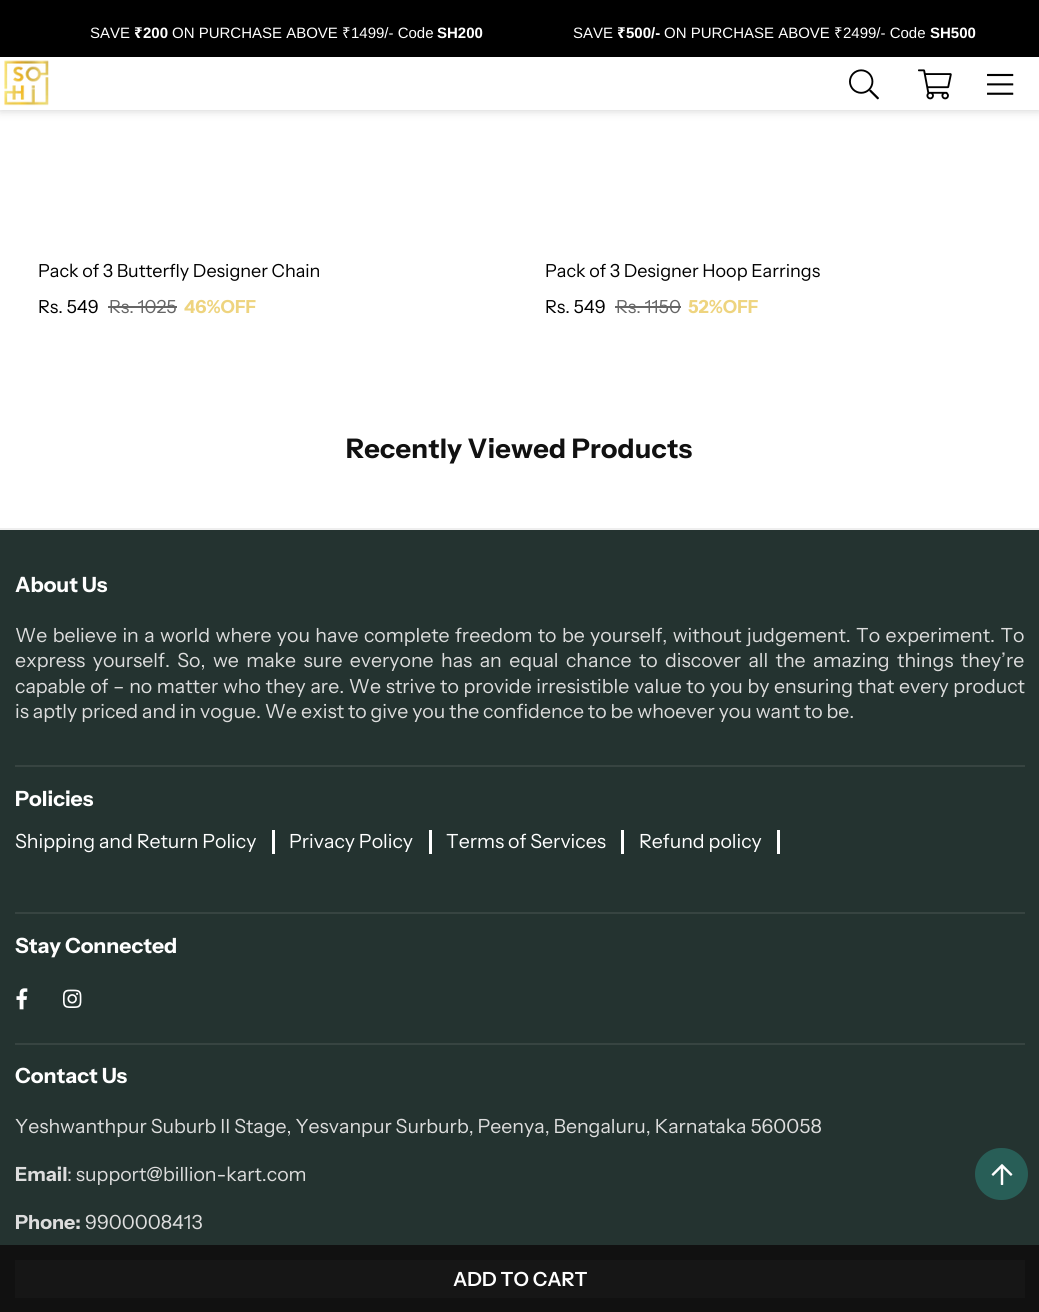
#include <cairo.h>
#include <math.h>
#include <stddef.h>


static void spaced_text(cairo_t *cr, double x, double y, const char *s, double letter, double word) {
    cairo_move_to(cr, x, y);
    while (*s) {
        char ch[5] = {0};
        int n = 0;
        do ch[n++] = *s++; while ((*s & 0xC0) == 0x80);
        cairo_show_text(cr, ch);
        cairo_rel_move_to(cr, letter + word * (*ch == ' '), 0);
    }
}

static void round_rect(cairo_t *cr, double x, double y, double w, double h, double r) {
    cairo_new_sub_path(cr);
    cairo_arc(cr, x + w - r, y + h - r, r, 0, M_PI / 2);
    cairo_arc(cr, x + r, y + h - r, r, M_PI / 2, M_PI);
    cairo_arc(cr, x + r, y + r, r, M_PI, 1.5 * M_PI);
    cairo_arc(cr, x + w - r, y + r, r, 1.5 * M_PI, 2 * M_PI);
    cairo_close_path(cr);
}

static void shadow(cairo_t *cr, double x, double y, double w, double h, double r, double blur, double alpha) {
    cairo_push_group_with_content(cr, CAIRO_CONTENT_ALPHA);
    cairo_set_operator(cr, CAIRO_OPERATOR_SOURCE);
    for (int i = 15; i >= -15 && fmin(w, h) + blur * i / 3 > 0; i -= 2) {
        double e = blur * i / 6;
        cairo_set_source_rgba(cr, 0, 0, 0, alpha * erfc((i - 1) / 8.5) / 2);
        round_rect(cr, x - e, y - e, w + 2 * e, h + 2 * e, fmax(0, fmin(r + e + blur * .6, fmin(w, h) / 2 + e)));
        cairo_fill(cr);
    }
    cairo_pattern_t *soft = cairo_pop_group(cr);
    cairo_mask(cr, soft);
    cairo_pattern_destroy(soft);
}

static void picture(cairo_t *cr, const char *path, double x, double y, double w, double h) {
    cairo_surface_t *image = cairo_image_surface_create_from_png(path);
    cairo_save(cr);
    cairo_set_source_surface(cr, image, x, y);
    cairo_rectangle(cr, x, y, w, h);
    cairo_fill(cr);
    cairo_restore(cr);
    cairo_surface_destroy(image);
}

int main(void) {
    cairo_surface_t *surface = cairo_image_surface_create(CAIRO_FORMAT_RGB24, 1039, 1312);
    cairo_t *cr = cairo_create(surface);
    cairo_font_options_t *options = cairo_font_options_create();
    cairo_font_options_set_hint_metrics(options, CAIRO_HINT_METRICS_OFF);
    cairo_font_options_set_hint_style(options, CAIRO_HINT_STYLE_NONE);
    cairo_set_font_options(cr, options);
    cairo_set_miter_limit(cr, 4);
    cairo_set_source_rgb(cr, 1, 1, 1);
    cairo_paint(cr);
    cairo_set_source_rgb(cr, 0, 0, 0);
    shadow(cr, 0, 0, 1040, 110, 0, 5, 0.2);
    cairo_set_source_rgb(cr, 1, 1, 1);
    cairo_rectangle(cr, 0, 57, 1039, 53);
    cairo_fill(cr);
    cairo_set_source_rgb(cr, 0, 0, 0);
    cairo_rectangle(cr, 0, 0, 1039, 57);
    cairo_fill(cr);
    cairo_select_font_face(cr, "Liberation Sans", CAIRO_FONT_SLANT_NORMAL, CAIRO_FONT_WEIGHT_NORMAL);
    cairo_set_font_size(cr, 15);
    cairo_set_source_rgb(cr, 1, 1, 1);
    cairo_move_to(cr, 90, 38);
    cairo_show_text(cr, "SAVE");
    cairo_select_font_face(cr, "Noto Sans", CAIRO_FONT_SLANT_NORMAL, CAIRO_FONT_WEIGHT_BOLD);
    cairo_move_to(cr, 134, 38);
    cairo_show_text(cr, "₹");
    cairo_select_font_face(cr, "Liberation Sans", CAIRO_FONT_SLANT_NORMAL, CAIRO_FONT_WEIGHT_BOLD);
    cairo_move_to(cr, 143, 38);
    cairo_show_text(cr, "200");
    cairo_select_font_face(cr, "Liberation Sans", CAIRO_FONT_SLANT_NORMAL, CAIRO_FONT_WEIGHT_NORMAL);
    cairo_move_to(cr, 172, 38);
    cairo_show_text(cr, "ON PURCHASE ABOVE");
    cairo_select_font_face(cr, "Noto Sans", CAIRO_FONT_SLANT_NORMAL, CAIRO_FONT_WEIGHT_NORMAL);
    cairo_move_to(cr, 342, 38);
    cairo_show_text(cr, "₹");
    cairo_select_font_face(cr, "Liberation Sans", CAIRO_FONT_SLANT_NORMAL, CAIRO_FONT_WEIGHT_NORMAL);
    cairo_move_to(cr, 351, 38);
    cairo_show_text(cr, "1499/- Code");
    cairo_select_font_face(cr, "Liberation Sans", CAIRO_FONT_SLANT_NORMAL, CAIRO_FONT_WEIGHT_BOLD);
    cairo_move_to(cr, 437, 38);
    cairo_show_text(cr, "SH200");
    cairo_select_font_face(cr, "Liberation Sans", CAIRO_FONT_SLANT_NORMAL, CAIRO_FONT_WEIGHT_NORMAL);
    cairo_move_to(cr, 573, 38);
    cairo_show_text(cr, "SAVE");
    cairo_select_font_face(cr, "Noto Sans", CAIRO_FONT_SLANT_NORMAL, CAIRO_FONT_WEIGHT_BOLD);
    cairo_move_to(cr, 617, 38);
    cairo_show_text(cr, "₹");
    cairo_select_font_face(cr, "Liberation Sans", CAIRO_FONT_SLANT_NORMAL, CAIRO_FONT_WEIGHT_BOLD);
    cairo_move_to(cr, 626, 38);
    cairo_show_text(cr, "500/-");
    cairo_select_font_face(cr, "Liberation Sans", CAIRO_FONT_SLANT_NORMAL, CAIRO_FONT_WEIGHT_NORMAL);
    cairo_move_to(cr, 664, 38);
    cairo_show_text(cr, "ON PURCHASE ABOVE");
    cairo_select_font_face(cr, "Noto Sans", CAIRO_FONT_SLANT_NORMAL, CAIRO_FONT_WEIGHT_NORMAL);
    cairo_move_to(cr, 834, 38);
    cairo_show_text(cr, "₹");
    cairo_select_font_face(cr, "Liberation Sans", CAIRO_FONT_SLANT_NORMAL, CAIRO_FONT_WEIGHT_NORMAL);
    cairo_move_to(cr, 843, 38);
    cairo_show_text(cr, "2499/- Code");
    cairo_select_font_face(cr, "Liberation Sans", CAIRO_FONT_SLANT_NORMAL, CAIRO_FONT_WEIGHT_BOLD);
    cairo_move_to(cr, 930, 38);
    cairo_show_text(cr, "SH500");
    picture(cr, "img1.png", 4, 60, 45, 46);
    picture(cr, "img2.png", 849, 69, 30, 31);
    picture(cr, "img3.png", 918, 69, 34, 31);
    picture(cr, "img4.png", 987, 73, 27, 22);
    cairo_select_font_face(cr, "Instrument Sans", CAIRO_FONT_SLANT_NORMAL, CAIRO_FONT_WEIGHT_NORMAL);
    cairo_set_font_size(cr, 18);
    cairo_set_source_rgb(cr, 0, 0, 0);
    cairo_move_to(cr, 38, 277);
    cairo_show_text(cr, "Pack of 3 Butterfly Designer Chain");
    cairo_move_to(cr, 38, 313);
    cairo_show_text(cr, "Rs. 549");
    cairo_set_source_rgb(cr, 0.4, 0.4, 0.4);
    cairo_move_to(cr, 109, 313);
    cairo_show_text(cr, "Rs. 1025");
    cairo_rectangle(cr, 108, 306, 69, 2);
    cairo_fill(cr);
    cairo_select_font_face(cr, "Instrument Sans", CAIRO_FONT_SLANT_NORMAL, CAIRO_FONT_WEIGHT_BOLD);
    cairo_set_source_rgb(cr, 0.933, 0.831, 0.498);
    cairo_move_to(cr, 184, 313);
    cairo_show_text(cr, "46%OFF");
    cairo_select_font_face(cr, "Instrument Sans", CAIRO_FONT_SLANT_NORMAL, CAIRO_FONT_WEIGHT_NORMAL);
    cairo_set_source_rgb(cr, 0, 0, 0);
    cairo_move_to(cr, 545, 277);
    cairo_show_text(cr, "Pack of 3 Designer Hoop Earrings");
    cairo_move_to(cr, 545, 313);
    cairo_show_text(cr, "Rs. 549");
    cairo_set_source_rgb(cr, 0.4, 0.4, 0.4);
    cairo_move_to(cr, 616, 313);
    cairo_show_text(cr, "Rs. 1150");
    cairo_rectangle(cr, 615, 306, 66, 2);
    cairo_fill(cr);
    cairo_select_font_face(cr, "Instrument Sans", CAIRO_FONT_SLANT_NORMAL, CAIRO_FONT_WEIGHT_BOLD);
    cairo_set_source_rgb(cr, 0.933, 0.831, 0.498);
    cairo_move_to(cr, 688, 313);
    cairo_show_text(cr, "52%OFF");
    cairo_set_font_size(cr, 27);
    cairo_set_source_rgb(cr, 0.067, 0.067, 0.067);
    spaced_text(cr, 346, 458, "Recently Viewed Products", 0.25, 0);
    cairo_rectangle(cr, 0, 1245, 1039, 67);
    cairo_fill(cr);
    cairo_set_source_rgb(cr, 0.086, 0.086, 0.086);
    cairo_rectangle(cr, 15, 1260, 1010, 38);
    cairo_fill(cr);
    cairo_select_font_face(cr, "Instrument Sans SemiBold", CAIRO_FONT_SLANT_NORMAL, CAIRO_FONT_WEIGHT_NORMAL);
    cairo_set_font_size(cr, 19.5);
    cairo_set_source_rgb(cr, 1, 1, 1);
    cairo_move_to(cr, 453, 1286);
    cairo_show_text(cr, "ADD TO CART");
    cairo_set_source_rgb(cr, 0.141, 0.2, 0.188);
    cairo_rectangle(cr, 0, 530, 1039, 715);
    cairo_fill(cr);
    cairo_set_source_rgb(cr, 0.933, 0.933, 0.933);
    cairo_rectangle(cr, 0, 528, 1039, 2);
    cairo_fill(cr);
    cairo_select_font_face(cr, "Instrument Sans", CAIRO_FONT_SLANT_NORMAL, CAIRO_FONT_WEIGHT_BOLD);
    cairo_set_font_size(cr, 21);
    cairo_set_source_rgb(cr, 1, 1, 1);
    cairo_move_to(cr, 15, 592);
    cairo_show_text(cr, "About Us");
    cairo_select_font_face(cr, "Instrument Sans", CAIRO_FONT_SLANT_NORMAL, CAIRO_FONT_WEIGHT_NORMAL);
    cairo_set_font_size(cr, 19.5);
    cairo_set_source_rgb(cr, 0.867, 0.867, 0.867);
    spaced_text(cr, 15, 642, "We believe in a world where you have complete freedom to be yourself, without judgement. To experiment. To", 0, 1.5);
    spaced_text(cr, 15, 667, "express yourself. So, we make sure everyone has an equal chance to discover all the amazing things they’re", 0, 3.5);
    spaced_text(cr, 15, 693, "capable of – no matter who they are. We strive to provide irresistible value to you by ensuring that every product", 0, 0.75);
    cairo_move_to(cr, 15, 718);
    cairo_show_text(cr, "is aptly priced and in vogue. We exist to give you the confidence to be whoever you want to be.");
    cairo_set_source_rgb(cr, 0.216, 0.267, 0.255);
    cairo_rectangle(cr, 15, 765, 1010, 2);
    cairo_fill(cr);
    cairo_select_font_face(cr, "Instrument Sans", CAIRO_FONT_SLANT_NORMAL, CAIRO_FONT_WEIGHT_BOLD);
    cairo_set_font_size(cr, 21);
    cairo_set_source_rgb(cr, 1, 1, 1);
    cairo_move_to(cr, 15, 806);
    cairo_show_text(cr, "Policies");
    cairo_select_font_face(cr, "Instrument Sans", CAIRO_FONT_SLANT_NORMAL, CAIRO_FONT_WEIGHT_NORMAL);
    cairo_set_font_size(cr, 19.5);
    cairo_move_to(cr, 15, 848);
    cairo_show_text(cr, "Shipping and Return Policy");
    cairo_rectangle(cr, 272, 830, 3, 24);
    cairo_fill(cr);
    cairo_move_to(cr, 289, 848);
    cairo_show_text(cr, "Privacy Policy");
    cairo_rectangle(cr, 429, 830, 3, 24);
    cairo_fill(cr);
    cairo_move_to(cr, 446, 848);
    cairo_show_text(cr, "Terms of Services");
    cairo_rectangle(cr, 621, 830, 3, 24);
    cairo_fill(cr);
    cairo_move_to(cr, 639, 848);
    cairo_show_text(cr, "Refund policy");
    cairo_rectangle(cr, 777, 830, 3, 24);
    cairo_fill(cr);
    cairo_set_source_rgb(cr, 0.216, 0.267, 0.255);
    cairo_rectangle(cr, 15, 912, 1010, 2);
    cairo_fill(cr);
    cairo_select_font_face(cr, "Instrument Sans", CAIRO_FONT_SLANT_NORMAL, CAIRO_FONT_WEIGHT_BOLD);
    cairo_set_font_size(cr, 21);
    cairo_set_source_rgb(cr, 1, 1, 1);
    cairo_move_to(cr, 15, 953);
    cairo_show_text(cr, "Stay Connected");
    picture(cr, "img5.png", 16, 988, 12, 22);
    picture(cr, "img6.png", 63, 989, 19, 19);
    cairo_set_source_rgb(cr, 0.216, 0.267, 0.255);
    cairo_rectangle(cr, 15, 1043, 1010, 2);
    cairo_fill(cr);
    cairo_set_source_rgb(cr, 1, 1, 1);
    cairo_move_to(cr, 15, 1083);
    cairo_show_text(cr, "Contact Us");
    cairo_select_font_face(cr, "Instrument Sans", CAIRO_FONT_SLANT_NORMAL, CAIRO_FONT_WEIGHT_NORMAL);
    cairo_set_font_size(cr, 19.5);
    cairo_set_source_rgb(cr, 0.867, 0.867, 0.867);
    cairo_move_to(cr, 15, 1133);
    cairo_show_text(cr, "Yeshwanthpur Suburb II Stage, Yesvanpur Surburb, Peenya, Bengaluru, Karnataka 560058");
    cairo_select_font_face(cr, "Instrument Sans", CAIRO_FONT_SLANT_NORMAL, CAIRO_FONT_WEIGHT_BOLD);
    cairo_move_to(cr, 15, 1181);
    cairo_show_text(cr, "Email");
    cairo_select_font_face(cr, "Instrument Sans", CAIRO_FONT_SLANT_NORMAL, CAIRO_FONT_WEIGHT_NORMAL);
    cairo_move_to(cr, 67, 1181);
    cairo_show_text(cr, ": support@billion-kart.com");
    cairo_select_font_face(cr, "Instrument Sans", CAIRO_FONT_SLANT_NORMAL, CAIRO_FONT_WEIGHT_BOLD);
    cairo_move_to(cr, 15, 1229);
    cairo_show_text(cr, "Phone:");
    cairo_select_font_face(cr, "Instrument Sans", CAIRO_FONT_SLANT_NORMAL, CAIRO_FONT_WEIGHT_NORMAL);
    cairo_move_to(cr, 85, 1229);
    cairo_show_text(cr, "9900008413");
    cairo_set_source_rgb(cr, 0.157, 0.369, 0.341);
    round_rect(cr, 975, 1148, 53, 52, 26);
    cairo_fill(cr);
    picture(cr, "img7.png", 991, 1164, 22, 21);
    cairo_surface_write_to_png(surface, "page.png");
    cairo_font_options_destroy(options);
    cairo_destroy(cr);
    cairo_surface_destroy(surface);
    return 0;
}
